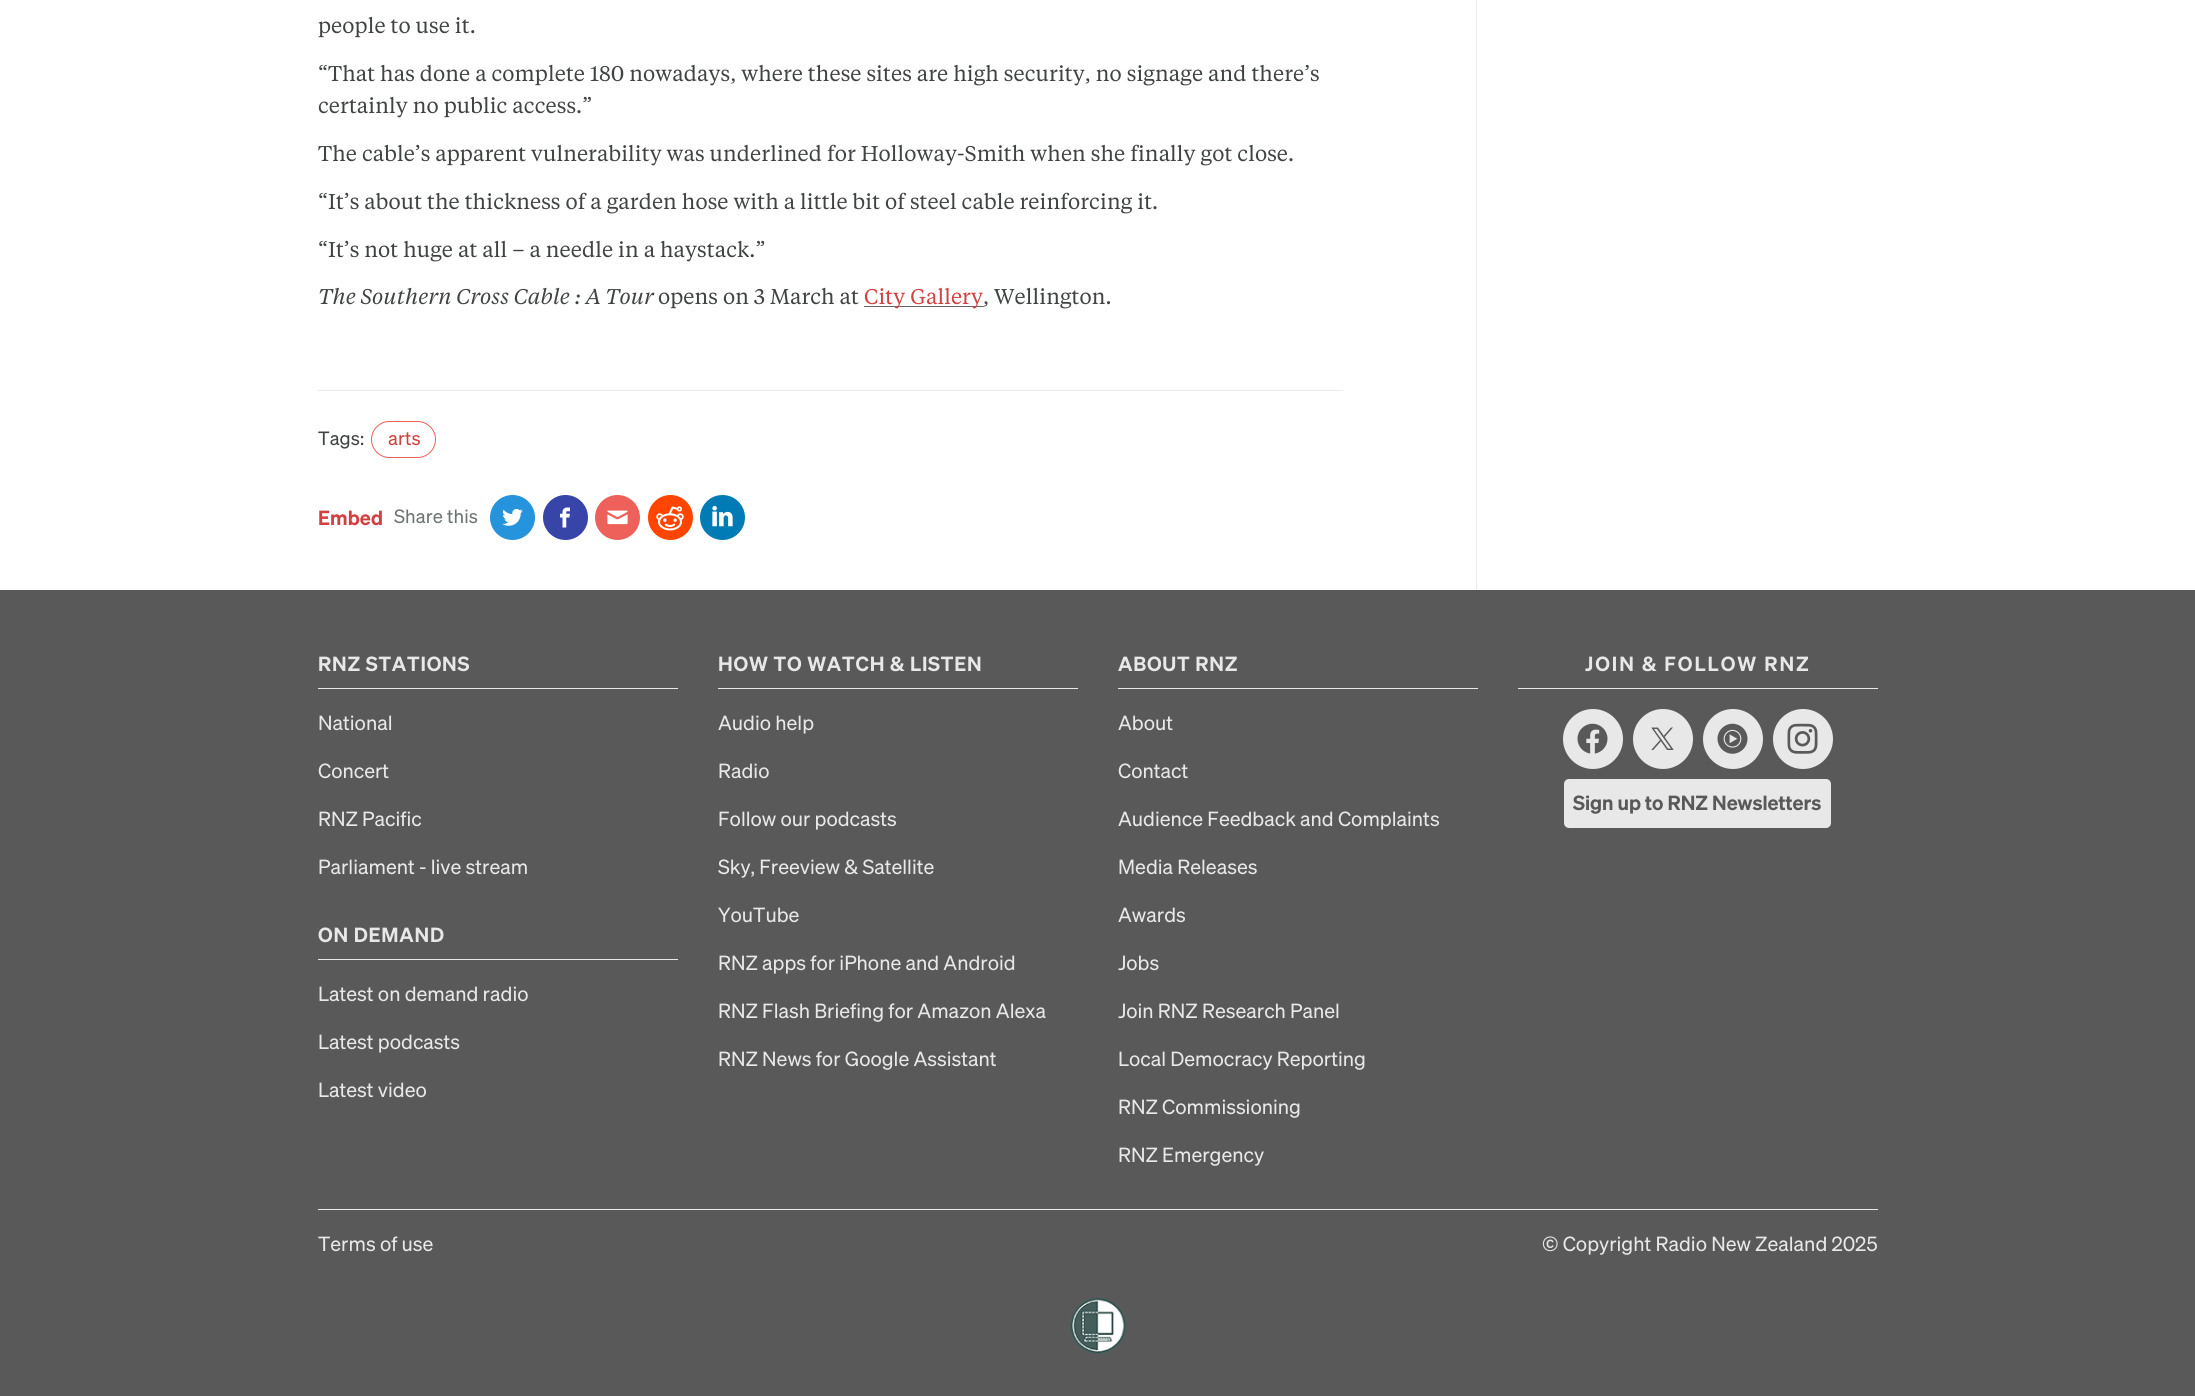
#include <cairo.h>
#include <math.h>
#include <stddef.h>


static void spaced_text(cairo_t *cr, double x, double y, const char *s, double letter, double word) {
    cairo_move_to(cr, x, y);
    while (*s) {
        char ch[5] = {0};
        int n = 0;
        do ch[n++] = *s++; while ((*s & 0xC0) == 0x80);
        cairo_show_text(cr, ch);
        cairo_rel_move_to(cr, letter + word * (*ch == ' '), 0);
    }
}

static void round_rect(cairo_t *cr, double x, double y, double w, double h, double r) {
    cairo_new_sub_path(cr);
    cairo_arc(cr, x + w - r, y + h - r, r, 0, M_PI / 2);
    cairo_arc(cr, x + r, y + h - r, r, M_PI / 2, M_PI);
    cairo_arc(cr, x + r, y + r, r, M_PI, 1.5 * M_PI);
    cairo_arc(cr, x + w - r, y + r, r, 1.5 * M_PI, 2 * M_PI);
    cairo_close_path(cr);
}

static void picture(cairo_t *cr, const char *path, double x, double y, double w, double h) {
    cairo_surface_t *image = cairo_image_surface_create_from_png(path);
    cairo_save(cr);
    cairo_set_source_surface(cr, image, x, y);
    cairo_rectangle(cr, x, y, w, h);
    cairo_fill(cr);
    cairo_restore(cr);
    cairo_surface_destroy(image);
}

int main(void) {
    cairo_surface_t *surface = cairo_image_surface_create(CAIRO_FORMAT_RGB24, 2195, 1396);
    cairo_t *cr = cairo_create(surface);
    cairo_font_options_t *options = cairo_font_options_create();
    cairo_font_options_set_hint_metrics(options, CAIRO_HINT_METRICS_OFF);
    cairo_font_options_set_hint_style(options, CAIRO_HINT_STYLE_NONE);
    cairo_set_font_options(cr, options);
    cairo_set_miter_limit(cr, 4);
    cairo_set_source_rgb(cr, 1, 1, 1);
    cairo_paint(cr);
    cairo_select_font_face(cr, "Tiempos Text", CAIRO_FONT_SLANT_NORMAL, CAIRO_FONT_WEIGHT_NORMAL);
    cairo_set_font_size(cr, 21.25);
    cairo_set_source_rgb(cr, 0.251, 0.267, 0.255);
    spaced_text(cr, 318, 33, "people to use it.", 0.1, 0);
    spaced_text(cr, 318, 81, "“That has done a complete 180 nowadays, where these sites are high security, no signage and there’s", 0.1, 0);
    spaced_text(cr, 318, 113, "certainly no public access.”", 0.1, 0);
    spaced_text(cr, 318, 161, "The cable’s apparent vulnerability was underlined for Holloway-Smith when she finally got close.", 0.1, 0);
    spaced_text(cr, 318, 209, "“It’s about the thickness of a garden hose with a little bit of steel cable reinforcing it.", 0.1, 0);
    spaced_text(cr, 318, 257, "“It’s not huge at all – a needle in a haystack.”", 0.1, 0);
    cairo_select_font_face(cr, "Tiempos Text", CAIRO_FONT_SLANT_ITALIC, CAIRO_FONT_WEIGHT_NORMAL);
    spaced_text(cr, 318, 304, "The Southern Cross Cable : A Tour", 0.1, 0);
    cairo_select_font_face(cr, "Tiempos Text", CAIRO_FONT_SLANT_NORMAL, CAIRO_FONT_WEIGHT_NORMAL);
    spaced_text(cr, 658, 304, "opens on 3 March at", 0.1, 0);
    cairo_set_source_rgb(cr, 0.4, 0.412, 0.404);
    cairo_rectangle(cr, 864, 306, 120, 1);
    cairo_fill(cr);
    cairo_set_source_rgb(cr, 0.824, 0.255, 0.255);
    spaced_text(cr, 864, 304, "City Gallery", 0.1, 0);
    cairo_set_source_rgb(cr, 0.251, 0.267, 0.255);
    spaced_text(cr, 983, 304, ", Wellington.", 0.1, 0);
    cairo_set_source_rgb(cr, 0.922, 0.918, 0.902);
    cairo_rectangle(cr, 318, 390, 1025, 1);
    cairo_fill(cr);
    cairo_select_font_face(cr, "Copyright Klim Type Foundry", CAIRO_FONT_SLANT_NORMAL, CAIRO_FONT_WEIGHT_NORMAL);
    cairo_set_font_size(cr, 18.75);
    cairo_set_source_rgb(cr, 0.251, 0.267, 0.255);
    spaced_text(cr, 318, 445, "Tags:", 0.1, 0);
    round_rect(cr, 371.5, 421.5, 64, 36, 18);
    cairo_set_source_rgb(cr, 0.929, 0.38, 0.353);
    cairo_set_line_width(cr, 1);
    cairo_stroke(cr);
    cairo_set_source_rgb(cr, 0.824, 0.255, 0.255);
    spaced_text(cr, 388, 445, "arts", 0.1, 0);
    cairo_select_font_face(cr, "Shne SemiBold", CAIRO_FONT_SLANT_NORMAL, CAIRO_FONT_WEIGHT_NORMAL);
    cairo_set_font_size(cr, 20);
    spaced_text(cr, 318, 525, "Embed", 0.1, 0);
    cairo_select_font_face(cr, "Copyright Klim Type Foundry", CAIRO_FONT_SLANT_NORMAL, CAIRO_FONT_WEIGHT_NORMAL);
    cairo_set_font_size(cr, 18.75);
    cairo_set_source_rgb(cr, 0.427, 0.459, 0.439);
    spaced_text(cr, 394, 523, "Share this", 0.1, 0);
    cairo_set_source_rgb(cr, 0.149, 0.576, 0.867);
    cairo_new_path(cr);
    cairo_arc(cr, 512.5, 517.5, 22.5, 0, 2 * M_PI);
    cairo_fill(cr);
    picture(cr, "img1.png", 502, 509, 21, 17);
    cairo_set_source_rgb(cr, 0.216, 0.267, 0.659);
    cairo_arc(cr, 565.5, 517.5, 22.5, 0, 2 * M_PI);
    cairo_fill(cr);
    picture(cr, "img2.png", 560, 507, 10, 21);
    cairo_set_source_rgb(cr, 0.929, 0.38, 0.353);
    cairo_arc(cr, 617.5, 517.5, 22.5, 0, 2 * M_PI);
    cairo_fill(cr);
    picture(cr, "img3.png", 607, 510, 21, 15);
    cairo_set_source_rgb(cr, 1, 0.271, 0);
    cairo_arc(cr, 670.5, 517.5, 22.5, 0, 2 * M_PI);
    cairo_fill(cr);
    picture(cr, "img4.png", 656, 506, 28, 25);
    cairo_set_source_rgb(cr, 0, 0.482, 0.714);
    cairo_arc(cr, 722.5, 517.5, 22.5, 0, 2 * M_PI);
    cairo_fill(cr);
    picture(cr, "img5.png", 712, 506, 21, 21);
    cairo_set_source_rgb(cr, 0.922, 0.918, 0.902);
    cairo_rectangle(cr, 1476, 0, 1, 590);
    cairo_fill(cr);
    cairo_set_source_rgb(cr, 0.349, 0.349, 0.349);
    cairo_rectangle(cr, 0, 590, 2195, 806);
    cairo_fill(cr);
    cairo_set_source_rgb(cr, 0.91, 0.91, 0.91);
    cairo_rectangle(cr, 318, 688, 360, 1);
    cairo_fill(cr);
    cairo_select_font_face(cr, "Shne SemiBold", CAIRO_FONT_SLANT_NORMAL, CAIRO_FONT_WEIGHT_NORMAL);
    cairo_set_font_size(cr, 20);
    spaced_text(cr, 318, 671, "RNZ STATIONS", 0.8, 0);
    cairo_select_font_face(cr, "Copyright Klim Type Foundry", CAIRO_FONT_SLANT_NORMAL, CAIRO_FONT_WEIGHT_NORMAL);
    cairo_move_to(cr, 318, 730);
    cairo_show_text(cr, "National");
    cairo_move_to(cr, 318, 778);
    cairo_show_text(cr, "Concert");
    cairo_move_to(cr, 318, 826);
    cairo_show_text(cr, "RNZ Pacific");
    cairo_move_to(cr, 318, 874);
    cairo_show_text(cr, "Parliament - live stream");
    cairo_rectangle(cr, 318, 959, 360, 1);
    cairo_fill(cr);
    cairo_select_font_face(cr, "Shne SemiBold", CAIRO_FONT_SLANT_NORMAL, CAIRO_FONT_WEIGHT_NORMAL);
    spaced_text(cr, 318, 942, "ON DEMAND", 0.8, 0);
    cairo_select_font_face(cr, "Copyright Klim Type Foundry", CAIRO_FONT_SLANT_NORMAL, CAIRO_FONT_WEIGHT_NORMAL);
    cairo_move_to(cr, 318, 1001);
    cairo_show_text(cr, "Latest on demand radio");
    cairo_move_to(cr, 318, 1049);
    cairo_show_text(cr, "Latest podcasts");
    cairo_move_to(cr, 318, 1097);
    cairo_show_text(cr, "Latest video");
    cairo_rectangle(cr, 718, 688, 360, 1);
    cairo_fill(cr);
    cairo_select_font_face(cr, "Shne SemiBold", CAIRO_FONT_SLANT_NORMAL, CAIRO_FONT_WEIGHT_NORMAL);
    spaced_text(cr, 718, 671, "HOW TO WATCH & LISTEN", 0.8, 0);
    cairo_select_font_face(cr, "Copyright Klim Type Foundry", CAIRO_FONT_SLANT_NORMAL, CAIRO_FONT_WEIGHT_NORMAL);
    cairo_move_to(cr, 718, 730);
    cairo_show_text(cr, "Audio help");
    cairo_move_to(cr, 718, 778);
    cairo_show_text(cr, "Radio");
    cairo_move_to(cr, 718, 826);
    cairo_show_text(cr, "Follow our podcasts");
    cairo_move_to(cr, 718, 874);
    cairo_show_text(cr, "Sky, Freeview & Satellite");
    cairo_move_to(cr, 718, 922);
    cairo_show_text(cr, "YouTube");
    cairo_move_to(cr, 718, 970);
    cairo_show_text(cr, "RNZ apps for iPhone and Android");
    cairo_move_to(cr, 718, 1018);
    cairo_show_text(cr, "RNZ Flash Briefing for Amazon Alexa");
    cairo_move_to(cr, 718, 1066);
    cairo_show_text(cr, "RNZ News for Google Assistant");
    cairo_rectangle(cr, 1118, 688, 360, 1);
    cairo_fill(cr);
    cairo_select_font_face(cr, "Shne SemiBold", CAIRO_FONT_SLANT_NORMAL, CAIRO_FONT_WEIGHT_NORMAL);
    spaced_text(cr, 1118, 671, "ABOUT RNZ", 0.8, 0);
    cairo_select_font_face(cr, "Copyright Klim Type Foundry", CAIRO_FONT_SLANT_NORMAL, CAIRO_FONT_WEIGHT_NORMAL);
    cairo_move_to(cr, 1118, 730);
    cairo_show_text(cr, "About");
    cairo_move_to(cr, 1118, 778);
    cairo_show_text(cr, "Contact");
    cairo_move_to(cr, 1118, 826);
    cairo_show_text(cr, "Audience Feedback and Complaints");
    cairo_move_to(cr, 1118, 874);
    cairo_show_text(cr, "Media Releases");
    cairo_move_to(cr, 1118, 922);
    cairo_show_text(cr, "Awards");
    cairo_move_to(cr, 1118, 970);
    cairo_show_text(cr, "Jobs");
    cairo_move_to(cr, 1118, 1018);
    cairo_show_text(cr, "Join RNZ Research Panel");
    cairo_move_to(cr, 1118, 1066);
    cairo_show_text(cr, "Local Democracy Reporting");
    cairo_move_to(cr, 1118, 1114);
    cairo_show_text(cr, "RNZ Commissioning");
    cairo_move_to(cr, 1118, 1162);
    cairo_show_text(cr, "RNZ Emergency");
    cairo_rectangle(cr, 1518, 688, 360, 1);
    cairo_fill(cr);
    cairo_select_font_face(cr, "Shne SemiBold", CAIRO_FONT_SLANT_NORMAL, CAIRO_FONT_WEIGHT_NORMAL);
    spaced_text(cr, 1585, 671, "JOIN & FOLLOW RNZ", 2, 0);
    cairo_new_path(cr);
    cairo_arc(cr, 1593, 739, 30, 0, 2 * M_PI);
    cairo_fill(cr);
    picture(cr, "img6.png", 1577, 723, 31, 31);
    cairo_arc(cr, 1663, 739, 30, 0, 2 * M_PI);
    cairo_fill(cr);
    picture(cr, "img7.png", 1651, 727, 23, 23);
    cairo_arc(cr, 1733, 739, 30, 0, 2 * M_PI);
    cairo_fill(cr);
    picture(cr, "img8.png", 1717, 723, 31, 31);
    cairo_arc(cr, 1803, 739, 30, 0, 2 * M_PI);
    cairo_fill(cr);
    picture(cr, "img9.png", 1787, 723, 31, 31);
    round_rect(cr, 1564, 779, 267, 49, 5);
    cairo_fill(cr);
    cairo_set_source_rgb(cr, 0.349, 0.349, 0.349);
    cairo_move_to(cr, 1573, 810);
    cairo_show_text(cr, "Sign up to RNZ Newsletters");
    cairo_set_source_rgb(cr, 0.91, 0.91, 0.91);
    cairo_rectangle(cr, 318, 1209, 1560, 1);
    cairo_fill(cr);
    cairo_select_font_face(cr, "Copyright Klim Type Foundry", CAIRO_FONT_SLANT_NORMAL, CAIRO_FONT_WEIGHT_NORMAL);
    cairo_move_to(cr, 318, 1251);
    cairo_show_text(cr, "Terms of use");
    cairo_move_to(cr, 1542, 1251);
    cairo_show_text(cr, "© Copyright Radio New Zealand 2025");
    picture(cr, "img10.png", 1070, 1297, 57, 57);
    cairo_surface_write_to_png(surface, "page.png");
    cairo_font_options_destroy(options);
    cairo_destroy(cr);
    cairo_surface_destroy(surface);
    return 0;
}
